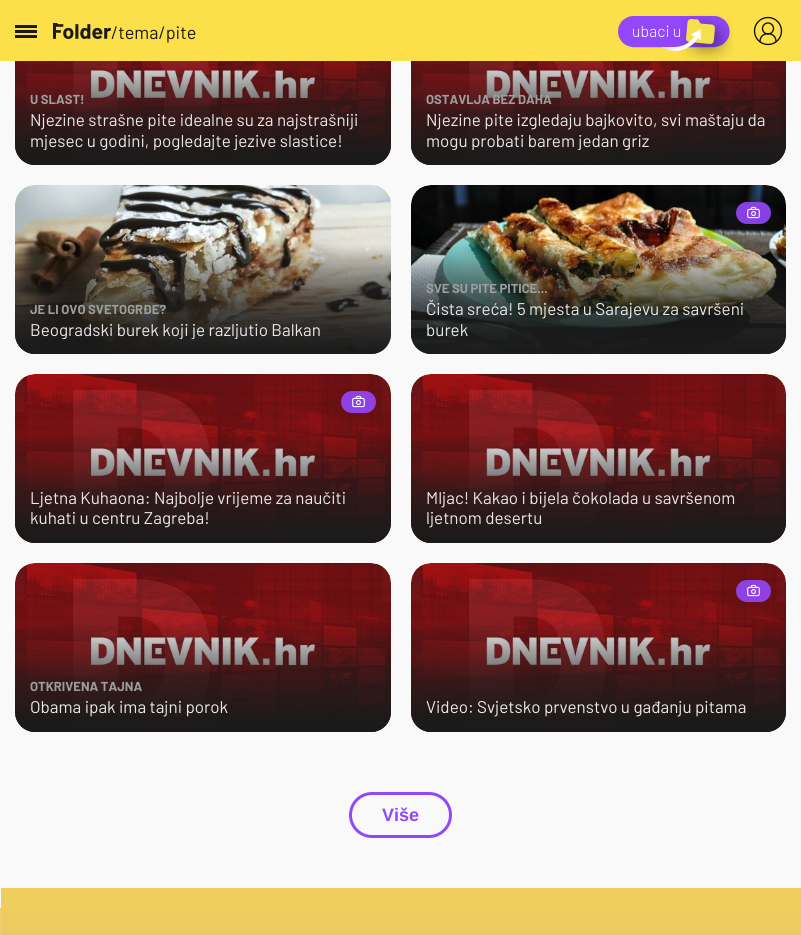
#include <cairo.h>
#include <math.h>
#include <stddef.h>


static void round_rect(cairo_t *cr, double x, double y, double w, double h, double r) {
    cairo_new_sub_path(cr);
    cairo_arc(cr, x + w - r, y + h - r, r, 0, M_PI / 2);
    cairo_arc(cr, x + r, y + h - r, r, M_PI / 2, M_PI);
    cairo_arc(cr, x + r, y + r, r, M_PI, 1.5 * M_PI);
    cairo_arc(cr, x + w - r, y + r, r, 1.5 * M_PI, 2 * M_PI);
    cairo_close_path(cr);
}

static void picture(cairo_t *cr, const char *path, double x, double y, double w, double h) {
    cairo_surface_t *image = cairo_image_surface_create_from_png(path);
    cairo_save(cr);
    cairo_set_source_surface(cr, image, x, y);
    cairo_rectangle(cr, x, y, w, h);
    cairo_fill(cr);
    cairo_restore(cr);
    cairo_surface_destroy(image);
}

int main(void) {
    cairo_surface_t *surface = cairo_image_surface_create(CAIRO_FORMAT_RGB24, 801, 935);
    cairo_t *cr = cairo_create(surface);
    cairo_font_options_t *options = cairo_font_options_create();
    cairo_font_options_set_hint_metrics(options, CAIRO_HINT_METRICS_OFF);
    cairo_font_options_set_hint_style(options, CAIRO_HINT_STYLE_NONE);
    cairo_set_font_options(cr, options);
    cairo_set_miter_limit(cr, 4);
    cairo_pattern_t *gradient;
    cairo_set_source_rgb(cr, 0.973, 0.973, 0.973);
    cairo_paint(cr);
    picture(cr, "img3.png", 15, 145, 376, 20);
    picture(cr, "img4.png", 15, 61, 376, 104);
    gradient = cairo_pattern_create_linear(203, -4, 203, 165);
    cairo_pattern_add_color_stop_rgba(gradient, 0.37, 0.102, 0.102, 0.102, 0);
    cairo_pattern_add_color_stop_rgba(gradient, 1, 0.102, 0.102, 0.102, 1);
    cairo_set_source(cr, gradient);
    cairo_pattern_destroy(gradient);
    round_rect(cr, 15, -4, 376, 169, 20);
    cairo_fill(cr);
    gradient = cairo_pattern_create_linear(203, -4, 203, 165);
    cairo_pattern_add_color_stop_rgba(gradient, 0.32, 0.102, 0.102, 0.102, 0);
    cairo_pattern_add_color_stop_rgba(gradient, 1, 0.102, 0.102, 0.102, 0.7);
    cairo_set_source(cr, gradient);
    cairo_pattern_destroy(gradient);
    round_rect(cr, 15, -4, 376, 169, 20);
    cairo_fill(cr);
    picture(cr, "img5.png", 411, 145, 375, 20);
    picture(cr, "img6.png", 411, 61, 375, 104);
    gradient = cairo_pattern_create_linear(599, -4, 599, 165);
    cairo_pattern_add_color_stop_rgba(gradient, 0.37, 0.102, 0.102, 0.102, 0);
    cairo_pattern_add_color_stop_rgba(gradient, 1, 0.102, 0.102, 0.102, 1);
    cairo_set_source(cr, gradient);
    cairo_pattern_destroy(gradient);
    round_rect(cr, 411, -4, 375, 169, 20);
    cairo_fill(cr);
    gradient = cairo_pattern_create_linear(599, -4, 599, 165);
    cairo_pattern_add_color_stop_rgba(gradient, 0.32, 0.102, 0.102, 0.102, 0);
    cairo_pattern_add_color_stop_rgba(gradient, 1, 0.102, 0.102, 0.102, 0.7);
    cairo_set_source(cr, gradient);
    cairo_pattern_destroy(gradient);
    round_rect(cr, 411, -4, 375, 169, 20);
    cairo_fill(cr);
    cairo_set_source_rgb(cr, 0.984, 0.878, 0.286);
    cairo_rectangle(cr, 0, 0, 801, 61);
    cairo_fill(cr);
    cairo_set_source_rgb(cr, 0.102, 0.102, 0.102);
    cairo_rectangle(cr, 15, 30, 22, 3);
    cairo_fill(cr);
    cairo_rectangle(cr, 15, 25, 22, 3);
    cairo_fill(cr);
    cairo_rectangle(cr, 15, 35, 22, 3);
    cairo_fill(cr);
    picture(cr, "img1.png", 53, 23, 58, 16);
    cairo_select_font_face(cr, "Barlow", CAIRO_FONT_SLANT_NORMAL, CAIRO_FONT_WEIGHT_NORMAL);
    cairo_set_font_size(cr, 18);
    cairo_move_to(cr, 111, 39);
    cairo_show_text(cr, "/tema/pite");
    picture(cr, "img2.png", 618, 14, 115, 47);
    cairo_new_path(cr);
    cairo_move_to(cr, 776, 41.5);
    cairo_curve_to(cr, 776, 31, 760, 31, 760, 41.5);
    cairo_set_source_rgb(cr, 0.039, 0.039, 0.039);
    cairo_set_line_width(cr, 1.3);
    cairo_set_line_cap(cr, CAIRO_LINE_CAP_ROUND);
    cairo_set_line_join(cr, CAIRO_LINE_JOIN_ROUND);
    cairo_stroke(cr);
    cairo_arc(cr, 768, 28.5, 5.5, 0, 2 * M_PI);
    cairo_set_line_cap(cr, CAIRO_LINE_CAP_BUTT);
    cairo_set_line_join(cr, CAIRO_LINE_JOIN_MITER);
    cairo_stroke(cr);
    cairo_arc(cr, 768, 31, 13.5, 0, 2 * M_PI);
    cairo_stroke(cr);
    cairo_select_font_face(cr, "Barlow", CAIRO_FONT_SLANT_NORMAL, CAIRO_FONT_WEIGHT_BOLD);
    cairo_set_font_size(cr, 13);
    cairo_set_source_rgb(cr, 0.616, 0.62, 0.624);
    cairo_move_to(cr, 30, 104);
    cairo_show_text(cr, "U SLAST!");
    cairo_select_font_face(cr, "Barlow", CAIRO_FONT_SLANT_NORMAL, CAIRO_FONT_WEIGHT_NORMAL);
    cairo_set_font_size(cr, 17);
    cairo_set_source_rgb(cr, 0.918, 0.91, 0.91);
    cairo_move_to(cr, 30, 126);
    cairo_show_text(cr, "Njezine strašne pite idealne su za najstrašniji");
    cairo_save(cr);
    cairo_rectangle(cr, 30, 109, 346, 41);
    cairo_clip(cr);
    cairo_move_to(cr, 30, 147);
    cairo_show_text(cr, "mjesec u godini, pogledajte jezive slastice!");
    cairo_restore(cr);
    cairo_select_font_face(cr, "Barlow", CAIRO_FONT_SLANT_NORMAL, CAIRO_FONT_WEIGHT_BOLD);
    cairo_set_font_size(cr, 13);
    cairo_set_source_rgb(cr, 0.616, 0.62, 0.624);
    cairo_move_to(cr, 426, 104);
    cairo_show_text(cr, "OSTAVLJA BEZ DAHA");
    cairo_select_font_face(cr, "Barlow", CAIRO_FONT_SLANT_NORMAL, CAIRO_FONT_WEIGHT_NORMAL);
    cairo_set_font_size(cr, 17);
    cairo_set_source_rgb(cr, 0.918, 0.91, 0.91);
    cairo_move_to(cr, 426, 126);
    cairo_show_text(cr, "Njezine pite izgledaju bajkovito, svi maštaju da");
    cairo_save(cr);
    cairo_rectangle(cr, 426, 109, 345, 41);
    cairo_clip(cr);
    cairo_move_to(cr, 426, 147);
    cairo_show_text(cr, "mogu probati barem jedan griz");
    cairo_restore(cr);
    picture(cr, "img7.png", 15, 185, 376, 169);
    picture(cr, "img8.png", 15, 185, 376, 169);
    gradient = cairo_pattern_create_linear(203, 185, 203, 354);
    cairo_pattern_add_color_stop_rgba(gradient, 0.37, 0.102, 0.102, 0.102, 0);
    cairo_pattern_add_color_stop_rgba(gradient, 1, 0.102, 0.102, 0.102, 1);
    cairo_set_source(cr, gradient);
    cairo_pattern_destroy(gradient);
    round_rect(cr, 15, 185, 376, 169, 20);
    cairo_fill(cr);
    gradient = cairo_pattern_create_linear(203, 185, 203, 354);
    cairo_pattern_add_color_stop_rgba(gradient, 0.32, 0.102, 0.102, 0.102, 0);
    cairo_pattern_add_color_stop_rgba(gradient, 1, 0.102, 0.102, 0.102, 0.7);
    cairo_set_source(cr, gradient);
    cairo_pattern_destroy(gradient);
    round_rect(cr, 15, 185, 376, 169, 20);
    cairo_fill(cr);
    cairo_select_font_face(cr, "Barlow", CAIRO_FONT_SLANT_NORMAL, CAIRO_FONT_WEIGHT_BOLD);
    cairo_set_font_size(cr, 13);
    cairo_set_source_rgb(cr, 0.616, 0.62, 0.624);
    cairo_move_to(cr, 30, 314);
    cairo_show_text(cr, "JE LI OVO SVETOGRĐE?");
    cairo_save(cr);
    cairo_rectangle(cr, 30, 319, 291, 20);
    cairo_clip(cr);
    cairo_select_font_face(cr, "Barlow", CAIRO_FONT_SLANT_NORMAL, CAIRO_FONT_WEIGHT_NORMAL);
    cairo_set_font_size(cr, 17);
    cairo_set_source_rgb(cr, 0.918, 0.91, 0.91);
    cairo_move_to(cr, 30, 336);
    cairo_show_text(cr, "Beogradski burek koji je razljutio Balkan");
    cairo_restore(cr);
    picture(cr, "img9.png", 411, 185, 375, 169);
    picture(cr, "img10.png", 411, 185, 375, 169);
    gradient = cairo_pattern_create_linear(599, 185, 599, 354);
    cairo_pattern_add_color_stop_rgba(gradient, 0.37, 0.102, 0.102, 0.102, 0);
    cairo_pattern_add_color_stop_rgba(gradient, 1, 0.102, 0.102, 0.102, 1);
    cairo_set_source(cr, gradient);
    cairo_pattern_destroy(gradient);
    round_rect(cr, 411, 185, 375, 169, 20);
    cairo_fill(cr);
    gradient = cairo_pattern_create_linear(599, 185, 599, 354);
    cairo_pattern_add_color_stop_rgba(gradient, 0.32, 0.102, 0.102, 0.102, 0);
    cairo_pattern_add_color_stop_rgba(gradient, 1, 0.102, 0.102, 0.102, 0.7);
    cairo_set_source(cr, gradient);
    cairo_pattern_destroy(gradient);
    round_rect(cr, 411, 185, 375, 169, 20);
    cairo_fill(cr);
    cairo_set_source_rgba(cr, 0.573, 0.282, 0.98, 0.9);
    round_rect(cr, 736, 202, 35, 22, 11);
    cairo_fill(cr);
    picture(cr, "img11.png", 747, 206, 13, 13);
    cairo_set_source_rgb(cr, 0.616, 0.62, 0.624);
    cairo_move_to(cr, 426, 293);
    cairo_show_text(cr, "SVE SU PITE PITICE...");
    cairo_select_font_face(cr, "Barlow", CAIRO_FONT_SLANT_NORMAL, CAIRO_FONT_WEIGHT_NORMAL);
    cairo_set_font_size(cr, 17);
    cairo_set_source_rgb(cr, 0.918, 0.91, 0.91);
    cairo_move_to(cr, 426, 315);
    cairo_show_text(cr, "Čista sreća! 5 mjesta u Sarajevu za savršeni");
    cairo_move_to(cr, 426, 336);
    cairo_show_text(cr, "burek");
    picture(cr, "img7.png", 15, 374, 376, 169);
    picture(cr, "img12.png", 15, 374, 376, 169);
    gradient = cairo_pattern_create_linear(203, 374, 203, 543);
    cairo_pattern_add_color_stop_rgba(gradient, 0.37, 0.102, 0.102, 0.102, 0);
    cairo_pattern_add_color_stop_rgba(gradient, 1, 0.102, 0.102, 0.102, 1);
    cairo_set_source(cr, gradient);
    cairo_pattern_destroy(gradient);
    round_rect(cr, 15, 374, 376, 169, 20);
    cairo_fill(cr);
    gradient = cairo_pattern_create_linear(203, 374, 203, 543);
    cairo_pattern_add_color_stop_rgba(gradient, 0.32, 0.102, 0.102, 0.102, 0);
    cairo_pattern_add_color_stop_rgba(gradient, 1, 0.102, 0.102, 0.102, 0.7);
    cairo_set_source(cr, gradient);
    cairo_pattern_destroy(gradient);
    round_rect(cr, 15, 374, 376, 169, 20);
    cairo_fill(cr);
    cairo_set_source_rgba(cr, 0.573, 0.282, 0.98, 0.9);
    round_rect(cr, 341, 391, 35, 22, 11);
    cairo_fill(cr);
    picture(cr, "img13.png", 352, 395, 13, 13);
    cairo_set_source_rgb(cr, 0.918, 0.91, 0.91);
    cairo_move_to(cr, 30, 504);
    cairo_show_text(cr, "Ljetna Kuhaona: Najbolje vrijeme za naučiti");
    cairo_move_to(cr, 30, 524);
    cairo_show_text(cr, "kuhati u centru Zagreba!");
    picture(cr, "img9.png", 411, 374, 375, 169);
    picture(cr, "img14.png", 411, 374, 375, 169);
    gradient = cairo_pattern_create_linear(599, 374, 599, 543);
    cairo_pattern_add_color_stop_rgba(gradient, 0.37, 0.102, 0.102, 0.102, 0);
    cairo_pattern_add_color_stop_rgba(gradient, 1, 0.102, 0.102, 0.102, 1);
    cairo_set_source(cr, gradient);
    cairo_pattern_destroy(gradient);
    round_rect(cr, 411, 374, 375, 169, 20);
    cairo_fill(cr);
    gradient = cairo_pattern_create_linear(599, 374, 599, 543);
    cairo_pattern_add_color_stop_rgba(gradient, 0.32, 0.102, 0.102, 0.102, 0);
    cairo_pattern_add_color_stop_rgba(gradient, 1, 0.102, 0.102, 0.102, 0.7);
    cairo_set_source(cr, gradient);
    cairo_pattern_destroy(gradient);
    round_rect(cr, 411, 374, 375, 169, 20);
    cairo_fill(cr);
    cairo_set_source_rgb(cr, 0.918, 0.91, 0.91);
    cairo_move_to(cr, 426, 504);
    cairo_show_text(cr, "Mljac! Kakao i bijela čokolada u savršenom");
    cairo_move_to(cr, 426, 524);
    cairo_show_text(cr, "ljetnom desertu");
    picture(cr, "img15.png", 15, 563, 376, 169);
    picture(cr, "img16.png", 15, 563, 376, 169);
    gradient = cairo_pattern_create_linear(203, 563, 203, 732);
    cairo_pattern_add_color_stop_rgba(gradient, 0.37, 0.102, 0.102, 0.102, 0);
    cairo_pattern_add_color_stop_rgba(gradient, 1, 0.102, 0.102, 0.102, 1);
    cairo_set_source(cr, gradient);
    cairo_pattern_destroy(gradient);
    round_rect(cr, 15, 563, 376, 169, 20);
    cairo_fill(cr);
    gradient = cairo_pattern_create_linear(203, 563, 203, 732);
    cairo_pattern_add_color_stop_rgba(gradient, 0.32, 0.102, 0.102, 0.102, 0);
    cairo_pattern_add_color_stop_rgba(gradient, 1, 0.102, 0.102, 0.102, 0.7);
    cairo_set_source(cr, gradient);
    cairo_pattern_destroy(gradient);
    round_rect(cr, 15, 563, 376, 169, 20);
    cairo_fill(cr);
    cairo_select_font_face(cr, "Barlow", CAIRO_FONT_SLANT_NORMAL, CAIRO_FONT_WEIGHT_BOLD);
    cairo_set_font_size(cr, 13);
    cairo_set_source_rgb(cr, 0.616, 0.62, 0.624);
    cairo_move_to(cr, 30, 691);
    cairo_show_text(cr, "OTKRIVENA TAJNA");
    cairo_select_font_face(cr, "Barlow", CAIRO_FONT_SLANT_NORMAL, CAIRO_FONT_WEIGHT_NORMAL);
    cairo_set_font_size(cr, 17);
    cairo_set_source_rgb(cr, 0.918, 0.91, 0.91);
    cairo_move_to(cr, 30, 713);
    cairo_show_text(cr, "Obama ipak ima tajni porok");
    picture(cr, "img17.png", 411, 563, 375, 169);
    picture(cr, "img18.png", 411, 563, 375, 169);
    gradient = cairo_pattern_create_linear(599, 563, 599, 732);
    cairo_pattern_add_color_stop_rgba(gradient, 0.37, 0.102, 0.102, 0.102, 0);
    cairo_pattern_add_color_stop_rgba(gradient, 1, 0.102, 0.102, 0.102, 1);
    cairo_set_source(cr, gradient);
    cairo_pattern_destroy(gradient);
    round_rect(cr, 411, 563, 375, 169, 20);
    cairo_fill(cr);
    gradient = cairo_pattern_create_linear(599, 563, 599, 732);
    cairo_pattern_add_color_stop_rgba(gradient, 0.32, 0.102, 0.102, 0.102, 0);
    cairo_pattern_add_color_stop_rgba(gradient, 1, 0.102, 0.102, 0.102, 0.7);
    cairo_set_source(cr, gradient);
    cairo_pattern_destroy(gradient);
    round_rect(cr, 411, 563, 375, 169, 20);
    cairo_fill(cr);
    cairo_set_source_rgba(cr, 0.573, 0.282, 0.98, 0.9);
    round_rect(cr, 736, 580, 35, 22, 11);
    cairo_fill(cr);
    picture(cr, "img19.png", 747, 584, 13, 13);
    cairo_set_source_rgb(cr, 0.918, 0.91, 0.91);
    cairo_move_to(cr, 426, 713);
    cairo_show_text(cr, "Video: Svjetsko prvenstvo u gađanju pitama");
    round_rect(cr, 350.5, 793.5, 100, 43, 21.5);
    cairo_set_source_rgb(cr, 0.573, 0.282, 0.98);
    cairo_set_line_width(cr, 3);
    cairo_stroke(cr);
    cairo_select_font_face(cr, "Liberation Sans", CAIRO_FONT_SLANT_NORMAL, CAIRO_FONT_WEIGHT_BOLD);
    cairo_set_font_size(cr, 18);
    cairo_move_to(cr, 382, 821);
    cairo_show_text(cr, "Više");
    cairo_set_source_rgb(cr, 0.937, 0.808, 0.369);
    cairo_rectangle(cr, 1, 888, 800, 47);
    cairo_fill(cr);
    gradient = cairo_pattern_create_linear(401, 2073, 401, 908);
    cairo_pattern_add_color_stop_rgba(gradient, 0.5, 0.651, 0.392, 0.847, 1);
    cairo_pattern_add_color_stop_rgba(gradient, 1, 0.937, 0.808, 0.365, 0.9);
    cairo_set_source(cr, gradient);
    cairo_pattern_destroy(gradient);
    cairo_rectangle(cr, 0, 908, 801, 27);
    cairo_fill(cr);
    cairo_surface_write_to_png(surface, "page.png");
    cairo_font_options_destroy(options);
    cairo_destroy(cr);
    cairo_surface_destroy(surface);
    return 0;
}
